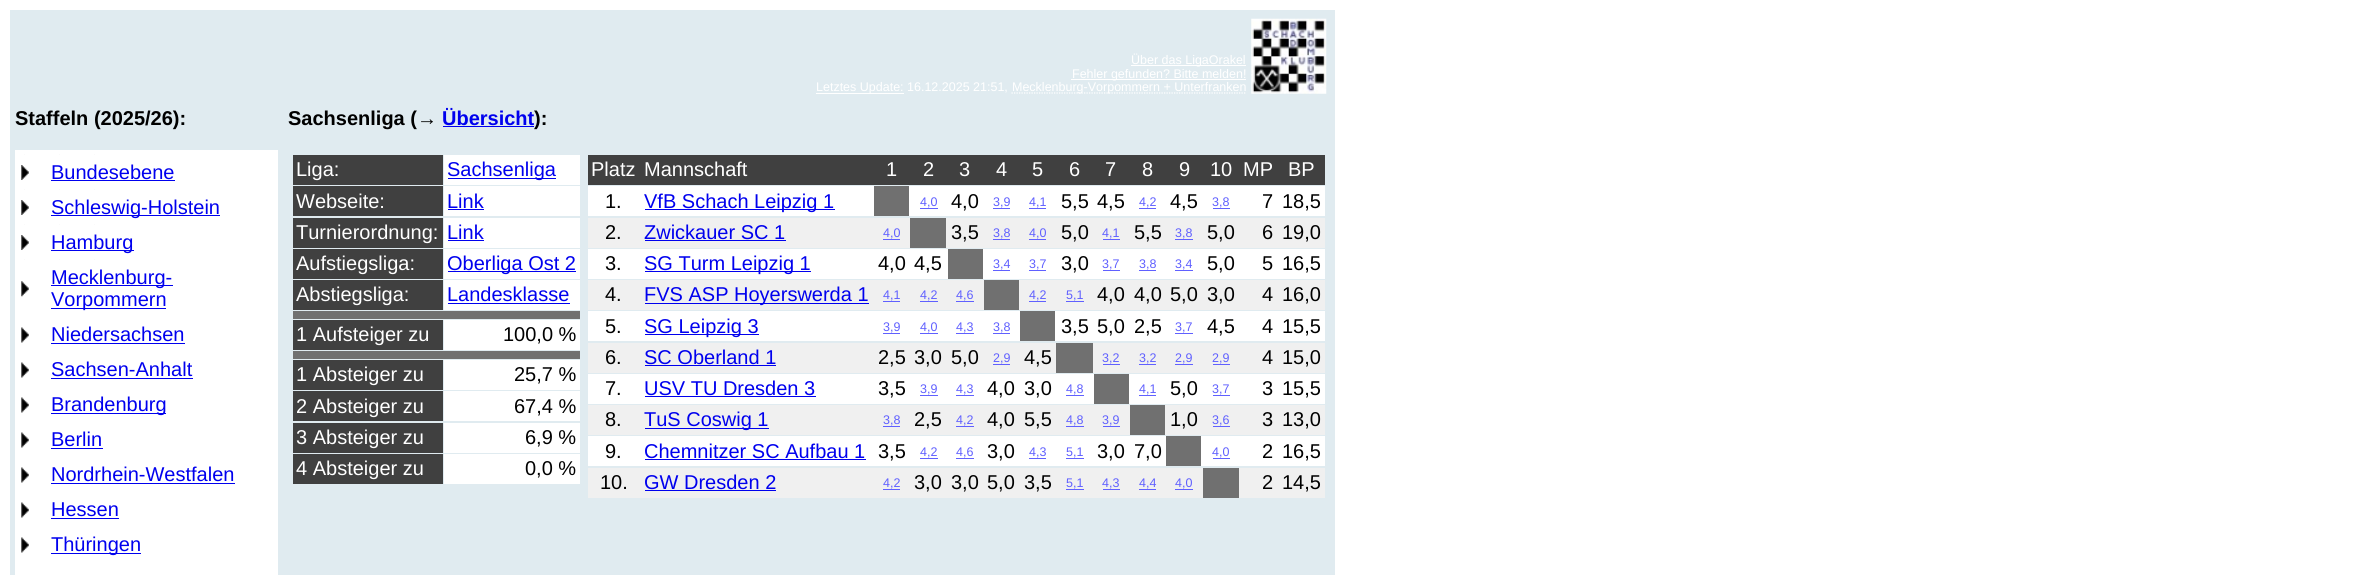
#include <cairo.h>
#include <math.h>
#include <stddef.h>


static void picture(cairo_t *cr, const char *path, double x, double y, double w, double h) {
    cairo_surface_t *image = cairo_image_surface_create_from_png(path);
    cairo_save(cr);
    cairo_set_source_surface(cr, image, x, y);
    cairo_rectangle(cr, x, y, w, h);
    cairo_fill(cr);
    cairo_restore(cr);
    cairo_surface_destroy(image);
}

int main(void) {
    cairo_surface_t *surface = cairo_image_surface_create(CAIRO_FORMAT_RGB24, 2358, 575);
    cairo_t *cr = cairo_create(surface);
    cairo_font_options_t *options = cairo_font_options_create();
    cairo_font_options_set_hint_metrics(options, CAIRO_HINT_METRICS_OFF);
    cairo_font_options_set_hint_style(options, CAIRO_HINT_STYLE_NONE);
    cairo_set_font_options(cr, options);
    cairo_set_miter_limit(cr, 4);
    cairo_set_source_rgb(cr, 1, 1, 1);
    cairo_paint(cr);
    cairo_set_source_rgb(cr, 0.878, 0.918, 0.941);
    cairo_rectangle(cr, 10, 10, 1325, 565);
    cairo_fill(cr);
    cairo_set_source_rgb(cr, 1, 1, 1);
    cairo_rectangle(cr, 1131, 65, 115, 1);
    cairo_fill(cr);
    cairo_select_font_face(cr, "Liberation Sans", CAIRO_FONT_SLANT_NORMAL, CAIRO_FONT_WEIGHT_NORMAL);
    cairo_set_font_size(cr, 12.5);
    cairo_move_to(cr, 1131, 64);
    cairo_show_text(cr, "Über das LigaOrakel");
    cairo_rectangle(cr, 1071, 79, 175, 1);
    cairo_fill(cr);
    cairo_move_to(cr, 1072, 78);
    cairo_show_text(cr, "Fehler gefunden? Bitte melden!");
    cairo_rectangle(cr, 816, 93, 88, 1);
    cairo_fill(cr);
    cairo_move_to(cr, 816, 91);
    cairo_show_text(cr, "Letztes Update: 16.12.2025 21:51,");
    cairo_new_path(cr);
    cairo_move_to(cr, 1011.5, 93);
    cairo_line_to(cr, 1246, 93);
    cairo_set_line_width(cr, 1.2);
    cairo_set_dash(cr, (double[]){1.25, 1.25}, 2, 0);
    cairo_stroke(cr);
    cairo_move_to(cr, 1012, 91);
    cairo_show_text(cr, "Mecklenburg-Vorpommern + Unterfranken");
    picture(cr, "img1.png", 1251, 18, 76, 76);
    cairo_select_font_face(cr, "Liberation Sans", CAIRO_FONT_SLANT_NORMAL, CAIRO_FONT_WEIGHT_BOLD);
    cairo_set_font_size(cr, 20);
    cairo_set_source_rgb(cr, 0, 0, 0);
    cairo_move_to(cr, 15, 125);
    cairo_show_text(cr, "Staffeln (2025/26):");
    cairo_set_source_rgb(cr, 1, 1, 1);
    cairo_rectangle(cr, 15, 150, 263, 10);
    cairo_fill(cr);
    cairo_set_source_rgb(cr, 0.98, 0.98, 0.98);
    cairo_rectangle(cr, 24, 154, 1, 1);
    cairo_fill(cr);
    cairo_rectangle(cr, 59, 154, 1, 1);
    cairo_fill(cr);
    cairo_rectangle(cr, 94, 154, 1, 1);
    cairo_fill(cr);
    cairo_set_source_rgb(cr, 1, 1, 1);
    cairo_rectangle(cr, 15, 160, 263, 25);
    cairo_fill(cr);
    picture(cr, "img2.png", 21, 165, 8, 15);
    cairo_select_font_face(cr, "Liberation Sans", CAIRO_FONT_SLANT_NORMAL, CAIRO_FONT_WEIGHT_NORMAL);
    cairo_set_source_rgb(cr, 0, 0, 0.933);
    cairo_move_to(cr, 51, 179);
    cairo_show_text(cr, "Bundesebene");
    cairo_rectangle(cr, 51, 180, 124, 1);
    cairo_fill(cr);
    cairo_set_source_rgb(cr, 1, 1, 1);
    cairo_rectangle(cr, 15, 185, 263, 10);
    cairo_fill(cr);
    cairo_set_source_rgb(cr, 0.98, 0.98, 0.98);
    cairo_rectangle(cr, 24, 189, 1, 1);
    cairo_fill(cr);
    cairo_rectangle(cr, 59, 189, 1, 1);
    cairo_fill(cr);
    cairo_rectangle(cr, 94, 189, 1, 1);
    cairo_fill(cr);
    cairo_set_source_rgb(cr, 1, 1, 1);
    cairo_rectangle(cr, 15, 195, 263, 25);
    cairo_fill(cr);
    picture(cr, "img2.png", 21, 200, 8, 15);
    cairo_set_source_rgb(cr, 0, 0, 0.933);
    cairo_rectangle(cr, 51, 215, 169, 1);
    cairo_fill(cr);
    cairo_move_to(cr, 51, 214);
    cairo_show_text(cr, "Schleswig-Holstein");
    cairo_set_source_rgb(cr, 1, 1, 1);
    cairo_rectangle(cr, 15, 220, 263, 10);
    cairo_fill(cr);
    cairo_set_source_rgb(cr, 0.98, 0.98, 0.98);
    cairo_rectangle(cr, 24, 224, 1, 1);
    cairo_fill(cr);
    cairo_rectangle(cr, 59, 224, 1, 1);
    cairo_fill(cr);
    cairo_rectangle(cr, 94, 224, 1, 1);
    cairo_fill(cr);
    cairo_set_source_rgb(cr, 1, 1, 1);
    cairo_rectangle(cr, 15, 230, 263, 25);
    cairo_fill(cr);
    picture(cr, "img2.png", 21, 235, 8, 15);
    cairo_set_source_rgb(cr, 0, 0, 0.933);
    cairo_rectangle(cr, 51, 250, 83, 1);
    cairo_fill(cr);
    cairo_move_to(cr, 51, 249);
    cairo_show_text(cr, "Hamburg");
    cairo_set_source_rgb(cr, 1, 1, 1);
    cairo_rectangle(cr, 15, 255, 263, 10);
    cairo_fill(cr);
    cairo_set_source_rgb(cr, 0.98, 0.98, 0.98);
    cairo_rectangle(cr, 24, 259, 1, 1);
    cairo_fill(cr);
    cairo_rectangle(cr, 59, 259, 1, 1);
    cairo_fill(cr);
    cairo_rectangle(cr, 94, 259, 1, 1);
    cairo_fill(cr);
    cairo_set_source_rgb(cr, 1, 1, 1);
    cairo_rectangle(cr, 15, 265, 263, 48);
    cairo_fill(cr);
    picture(cr, "img3.png", 21, 281, 8, 16);
    cairo_set_source_rgb(cr, 0, 0, 0.933);
    cairo_rectangle(cr, 51, 285, 122, 1);
    cairo_fill(cr);
    cairo_move_to(cr, 51, 284);
    cairo_show_text(cr, "Mecklenburg-");
    cairo_rectangle(cr, 51, 308, 115, 1);
    cairo_fill(cr);
    cairo_move_to(cr, 51, 306);
    cairo_show_text(cr, "Vorpommern");
    cairo_set_source_rgb(cr, 1, 1, 1);
    cairo_rectangle(cr, 15, 313, 263, 10);
    cairo_fill(cr);
    cairo_rectangle(cr, 15, 323, 263, 25);
    cairo_fill(cr);
    picture(cr, "img4.png", 21, 327, 8, 16);
    cairo_set_source_rgb(cr, 0, 0, 0.933);
    cairo_move_to(cr, 51, 341);
    cairo_show_text(cr, "Niedersachsen");
    cairo_rectangle(cr, 51, 343, 134, 1);
    cairo_fill(cr);
    cairo_set_source_rgb(cr, 1, 1, 1);
    cairo_rectangle(cr, 15, 348, 263, 10);
    cairo_fill(cr);
    cairo_rectangle(cr, 15, 358, 263, 25);
    cairo_fill(cr);
    picture(cr, "img4.png", 21, 362, 8, 16);
    cairo_set_source_rgb(cr, 0, 0, 0.933);
    cairo_move_to(cr, 51, 376);
    cairo_show_text(cr, "Sachsen-Anhalt");
    cairo_rectangle(cr, 51, 378, 142, 1);
    cairo_fill(cr);
    cairo_set_source_rgb(cr, 1, 1, 1);
    cairo_rectangle(cr, 15, 383, 263, 10);
    cairo_fill(cr);
    cairo_rectangle(cr, 15, 393, 263, 25);
    cairo_fill(cr);
    picture(cr, "img4.png", 21, 397, 8, 16);
    cairo_set_source_rgb(cr, 0, 0, 0.933);
    cairo_rectangle(cr, 51, 413, 115, 1);
    cairo_fill(cr);
    cairo_move_to(cr, 51, 411);
    cairo_show_text(cr, "Brandenburg");
    cairo_set_source_rgb(cr, 1, 1, 1);
    cairo_rectangle(cr, 15, 418, 263, 10);
    cairo_fill(cr);
    cairo_rectangle(cr, 15, 428, 263, 25);
    cairo_fill(cr);
    picture(cr, "img4.png", 21, 432, 8, 16);
    cairo_set_source_rgb(cr, 0, 0, 0.933);
    cairo_move_to(cr, 51, 446);
    cairo_show_text(cr, "Berlin");
    cairo_rectangle(cr, 51, 448, 52, 1);
    cairo_fill(cr);
    cairo_set_source_rgb(cr, 1, 1, 1);
    cairo_rectangle(cr, 15, 453, 263, 10);
    cairo_fill(cr);
    cairo_rectangle(cr, 15, 463, 263, 25);
    cairo_fill(cr);
    picture(cr, "img4.png", 21, 467, 8, 16);
    cairo_set_source_rgb(cr, 0, 0, 0.933);
    cairo_move_to(cr, 51, 481);
    cairo_show_text(cr, "Nordrhein-Westfalen");
    cairo_rectangle(cr, 51, 483, 184, 1);
    cairo_fill(cr);
    cairo_set_source_rgb(cr, 1, 1, 1);
    cairo_rectangle(cr, 15, 488, 263, 10);
    cairo_fill(cr);
    cairo_rectangle(cr, 15, 498, 263, 25);
    cairo_fill(cr);
    picture(cr, "img4.png", 21, 502, 8, 16);
    cairo_set_source_rgb(cr, 0, 0, 0.933);
    cairo_move_to(cr, 51, 516);
    cairo_show_text(cr, "Hessen");
    cairo_rectangle(cr, 51, 518, 68, 1);
    cairo_fill(cr);
    cairo_set_source_rgb(cr, 1, 1, 1);
    cairo_rectangle(cr, 15, 523, 263, 10);
    cairo_fill(cr);
    cairo_rectangle(cr, 15, 533, 263, 25);
    cairo_fill(cr);
    picture(cr, "img4.png", 21, 537, 8, 16);
    cairo_set_source_rgb(cr, 0, 0, 0.933);
    cairo_rectangle(cr, 51, 553, 90, 1);
    cairo_fill(cr);
    cairo_move_to(cr, 51, 551);
    cairo_show_text(cr, "Thüringen");
    cairo_set_source_rgb(cr, 1, 1, 1);
    cairo_rectangle(cr, 15, 558, 263, 10);
    cairo_fill(cr);
    cairo_rectangle(cr, 15, 568, 263, 7);
    cairo_fill(cr);
    cairo_select_font_face(cr, "Liberation Sans", CAIRO_FONT_SLANT_NORMAL, CAIRO_FONT_WEIGHT_BOLD);
    cairo_set_source_rgb(cr, 0, 0, 0);
    cairo_move_to(cr, 288, 125);
    cairo_show_text(cr, "Sachsenliga (→");
    cairo_set_source_rgb(cr, 0, 0, 0.933);
    cairo_move_to(cr, 442, 125);
    cairo_show_text(cr, "Übersicht");
    cairo_set_source_rgb(cr, 0, 0, 0);
    cairo_move_to(cr, 534, 125);
    cairo_show_text(cr, "):");
    cairo_set_source_rgb(cr, 0, 0, 0.933);
    cairo_rectangle(cr, 443, 126, 91, 1);
    cairo_fill(cr);
    cairo_set_source_rgb(cr, 0.251, 0.251, 0.251);
    cairo_rectangle(cr, 293, 155, 150, 30);
    cairo_fill(cr);
    cairo_select_font_face(cr, "Liberation Sans", CAIRO_FONT_SLANT_NORMAL, CAIRO_FONT_WEIGHT_NORMAL);
    cairo_set_source_rgb(cr, 1, 1, 1);
    cairo_move_to(cr, 296, 176);
    cairo_show_text(cr, "Liga:");
    cairo_rectangle(cr, 444, 155, 136, 30);
    cairo_fill(cr);
    cairo_set_source_rgb(cr, 0, 0, 0.933);
    cairo_rectangle(cr, 448, 178, 108, 1);
    cairo_fill(cr);
    cairo_move_to(cr, 447, 176);
    cairo_show_text(cr, "Sachsenliga");
    cairo_set_source_rgb(cr, 0.251, 0.251, 0.251);
    cairo_rectangle(cr, 293, 186, 150, 30);
    cairo_fill(cr);
    cairo_set_source_rgb(cr, 1, 1, 1);
    cairo_move_to(cr, 296, 208);
    cairo_show_text(cr, "Webseite:");
    cairo_rectangle(cr, 444, 186, 136, 30);
    cairo_fill(cr);
    cairo_set_source_rgb(cr, 0, 0, 0.933);
    cairo_move_to(cr, 447, 208);
    cairo_show_text(cr, "Link");
    cairo_rectangle(cr, 448, 209, 36, 1);
    cairo_fill(cr);
    cairo_set_source_rgb(cr, 0.251, 0.251, 0.251);
    cairo_rectangle(cr, 293, 218, 150, 30);
    cairo_fill(cr);
    cairo_set_source_rgb(cr, 1, 1, 1);
    cairo_move_to(cr, 296, 239);
    cairo_show_text(cr, "Turnierordnung:");
    cairo_rectangle(cr, 444, 218, 136, 30);
    cairo_fill(cr);
    cairo_set_source_rgb(cr, 0, 0, 0.933);
    cairo_move_to(cr, 447, 239);
    cairo_show_text(cr, "Link");
    cairo_rectangle(cr, 448, 240, 36, 1);
    cairo_fill(cr);
    cairo_set_source_rgb(cr, 0.251, 0.251, 0.251);
    cairo_rectangle(cr, 293, 249, 150, 30);
    cairo_fill(cr);
    cairo_set_source_rgb(cr, 1, 1, 1);
    cairo_move_to(cr, 296, 270);
    cairo_show_text(cr, "Aufstiegsliga:");
    cairo_rectangle(cr, 444, 249, 136, 30);
    cairo_fill(cr);
    cairo_set_source_rgb(cr, 0, 0, 0.933);
    cairo_rectangle(cr, 448, 271, 128, 1);
    cairo_fill(cr);
    cairo_move_to(cr, 447, 270);
    cairo_show_text(cr, "Oberliga Ost 2");
    cairo_set_source_rgb(cr, 0.251, 0.251, 0.251);
    cairo_rectangle(cr, 293, 280, 150, 30);
    cairo_fill(cr);
    cairo_set_source_rgb(cr, 1, 1, 1);
    cairo_move_to(cr, 296, 301);
    cairo_show_text(cr, "Abstiegsliga:");
    cairo_rectangle(cr, 444, 280, 136, 30);
    cairo_fill(cr);
    cairo_set_source_rgb(cr, 0, 0, 0.933);
    cairo_move_to(cr, 447, 301);
    cairo_show_text(cr, "Landesklasse");
    cairo_rectangle(cr, 448, 303, 122, 1);
    cairo_fill(cr);
    cairo_set_source_rgb(cr, 0.439, 0.439, 0.439);
    cairo_rectangle(cr, 293, 311, 287, 8);
    cairo_fill(cr);
    cairo_set_source_rgb(cr, 0.251, 0.251, 0.251);
    cairo_rectangle(cr, 293, 320, 150, 30);
    cairo_fill(cr);
    cairo_set_source_rgb(cr, 1, 1, 1);
    cairo_move_to(cr, 296, 341);
    cairo_show_text(cr, "1 Aufsteiger zu");
    cairo_rectangle(cr, 444, 320, 136, 30);
    cairo_fill(cr);
    cairo_set_source_rgb(cr, 0, 0, 0);
    cairo_move_to(cr, 503, 341);
    cairo_show_text(cr, "100,0 %");
    cairo_set_source_rgb(cr, 0.439, 0.439, 0.439);
    cairo_rectangle(cr, 293, 351, 287, 8);
    cairo_fill(cr);
    cairo_set_source_rgb(cr, 0.251, 0.251, 0.251);
    cairo_rectangle(cr, 293, 360, 150, 30);
    cairo_fill(cr);
    cairo_set_source_rgb(cr, 1, 1, 1);
    cairo_move_to(cr, 296, 381);
    cairo_show_text(cr, "1 Absteiger zu");
    cairo_rectangle(cr, 444, 360, 136, 30);
    cairo_fill(cr);
    cairo_set_source_rgb(cr, 0, 0, 0);
    cairo_move_to(cr, 514, 381);
    cairo_show_text(cr, "25,7 %");
    cairo_set_source_rgb(cr, 0.251, 0.251, 0.251);
    cairo_rectangle(cr, 293, 391, 150, 30);
    cairo_fill(cr);
    cairo_set_source_rgb(cr, 1, 1, 1);
    cairo_move_to(cr, 296, 413);
    cairo_show_text(cr, "2 Absteiger zu");
    cairo_rectangle(cr, 444, 391, 136, 30);
    cairo_fill(cr);
    cairo_set_source_rgb(cr, 0, 0, 0);
    cairo_move_to(cr, 514, 413);
    cairo_show_text(cr, "67,4 %");
    cairo_set_source_rgb(cr, 0.251, 0.251, 0.251);
    cairo_rectangle(cr, 293, 423, 150, 30);
    cairo_fill(cr);
    cairo_set_source_rgb(cr, 1, 1, 1);
    cairo_move_to(cr, 296, 444);
    cairo_show_text(cr, "3 Absteiger zu");
    cairo_rectangle(cr, 444, 423, 136, 30);
    cairo_fill(cr);
    cairo_set_source_rgb(cr, 0, 0, 0);
    cairo_move_to(cr, 525, 444);
    cairo_show_text(cr, "6,9 %");
    cairo_set_source_rgb(cr, 0.251, 0.251, 0.251);
    cairo_rectangle(cr, 293, 454, 150, 30);
    cairo_fill(cr);
    cairo_set_source_rgb(cr, 1, 1, 1);
    cairo_move_to(cr, 296, 475);
    cairo_show_text(cr, "4 Absteiger zu");
    cairo_rectangle(cr, 444, 454, 136, 30);
    cairo_fill(cr);
    cairo_set_source_rgb(cr, 0, 0, 0);
    cairo_move_to(cr, 525, 475);
    cairo_show_text(cr, "0,0 %");
    cairo_set_source_rgb(cr, 0.251, 0.251, 0.251);
    cairo_rectangle(cr, 588, 155, 737, 30);
    cairo_fill(cr);
    cairo_set_source_rgb(cr, 1, 1, 1);
    cairo_move_to(cr, 591, 176);
    cairo_show_text(cr, "Platz");
    cairo_move_to(cr, 644, 176);
    cairo_show_text(cr, "Mannschaft");
    cairo_move_to(cr, 886, 176);
    cairo_show_text(cr, "1");
    cairo_move_to(cr, 923, 176);
    cairo_show_text(cr, "2");
    cairo_move_to(cr, 959, 176);
    cairo_show_text(cr, "3");
    cairo_move_to(cr, 996, 176);
    cairo_show_text(cr, "4");
    cairo_move_to(cr, 1032, 176);
    cairo_show_text(cr, "5");
    cairo_move_to(cr, 1069, 176);
    cairo_show_text(cr, "6");
    cairo_move_to(cr, 1105, 176);
    cairo_show_text(cr, "7");
    cairo_move_to(cr, 1142, 176);
    cairo_show_text(cr, "8");
    cairo_move_to(cr, 1179, 176);
    cairo_show_text(cr, "9");
    cairo_move_to(cr, 1210, 176);
    cairo_show_text(cr, "10");
    cairo_move_to(cr, 1243, 176);
    cairo_show_text(cr, "MP");
    cairo_move_to(cr, 1288, 176);
    cairo_show_text(cr, "BP");
    cairo_rectangle(cr, 588, 186, 737, 30);
    cairo_fill(cr);
    cairo_set_source_rgb(cr, 0, 0, 0);
    cairo_move_to(cr, 605, 208);
    cairo_show_text(cr, "1.");
    cairo_set_source_rgb(cr, 0, 0, 0.933);
    cairo_rectangle(cr, 645, 209, 190, 1);
    cairo_fill(cr);
    cairo_move_to(cr, 644, 208);
    cairo_show_text(cr, "VfB Schach Leipzig 1");
    cairo_set_source_rgb(cr, 0.439, 0.439, 0.439);
    cairo_rectangle(cr, 874, 186, 35, 30);
    cairo_fill(cr);
    cairo_set_font_size(cr, 12.5);
    cairo_set_source_rgb(cr, 0.376, 0.376, 1);
    cairo_move_to(cr, 920, 206);
    cairo_show_text(cr, "4,0");
    cairo_rectangle(cr, 920, 208, 18, 1);
    cairo_fill(cr);
    cairo_set_font_size(cr, 20);
    cairo_set_source_rgb(cr, 0, 0, 0);
    cairo_move_to(cr, 951, 208);
    cairo_show_text(cr, "4,0");
    cairo_set_font_size(cr, 12.5);
    cairo_set_source_rgb(cr, 0.376, 0.376, 1);
    cairo_move_to(cr, 993, 206);
    cairo_show_text(cr, "3,9");
    cairo_rectangle(cr, 993, 208, 17, 1);
    cairo_fill(cr);
    cairo_move_to(cr, 1029, 206);
    cairo_show_text(cr, "4,1");
    cairo_rectangle(cr, 1029, 208, 17, 1);
    cairo_fill(cr);
    cairo_set_font_size(cr, 20);
    cairo_set_source_rgb(cr, 0, 0, 0);
    cairo_move_to(cr, 1061, 208);
    cairo_show_text(cr, "5,5");
    cairo_move_to(cr, 1097, 208);
    cairo_show_text(cr, "4,5");
    cairo_set_font_size(cr, 12.5);
    cairo_set_source_rgb(cr, 0.376, 0.376, 1);
    cairo_move_to(cr, 1139, 206);
    cairo_show_text(cr, "4,2");
    cairo_rectangle(cr, 1139, 208, 17, 1);
    cairo_fill(cr);
    cairo_set_font_size(cr, 20);
    cairo_set_source_rgb(cr, 0, 0, 0);
    cairo_move_to(cr, 1170, 208);
    cairo_show_text(cr, "4,5");
    cairo_set_font_size(cr, 12.5);
    cairo_set_source_rgb(cr, 0.376, 0.376, 1);
    cairo_move_to(cr, 1212, 206);
    cairo_show_text(cr, "3,8");
    cairo_rectangle(cr, 1213, 208, 17, 1);
    cairo_fill(cr);
    cairo_set_font_size(cr, 20);
    cairo_set_source_rgb(cr, 0, 0, 0);
    cairo_move_to(cr, 1262, 208);
    cairo_show_text(cr, "7");
    cairo_move_to(cr, 1282, 208);
    cairo_show_text(cr, "18,5");
    cairo_set_source_rgb(cr, 0.941, 0.941, 0.941);
    cairo_rectangle(cr, 588, 218, 737, 30);
    cairo_fill(cr);
    cairo_set_source_rgb(cr, 0, 0, 0);
    cairo_move_to(cr, 605, 239);
    cairo_show_text(cr, "2.");
    cairo_set_source_rgb(cr, 0, 0, 0.933);
    cairo_move_to(cr, 644, 239);
    cairo_show_text(cr, "Zwickauer SC 1");
    cairo_rectangle(cr, 645, 240, 141, 1);
    cairo_fill(cr);
    cairo_set_font_size(cr, 12.5);
    cairo_set_source_rgb(cr, 0.376, 0.376, 1);
    cairo_move_to(cr, 883, 237);
    cairo_show_text(cr, "4,0");
    cairo_rectangle(cr, 883, 239, 17, 1);
    cairo_fill(cr);
    cairo_set_source_rgb(cr, 0.439, 0.439, 0.439);
    cairo_rectangle(cr, 910, 218, 36, 30);
    cairo_fill(cr);
    cairo_set_font_size(cr, 20);
    cairo_set_source_rgb(cr, 0, 0, 0);
    cairo_move_to(cr, 951, 239);
    cairo_show_text(cr, "3,5");
    cairo_set_font_size(cr, 12.5);
    cairo_set_source_rgb(cr, 0.376, 0.376, 1);
    cairo_move_to(cr, 993, 237);
    cairo_show_text(cr, "3,8");
    cairo_rectangle(cr, 993, 239, 17, 1);
    cairo_fill(cr);
    cairo_move_to(cr, 1029, 237);
    cairo_show_text(cr, "4,0");
    cairo_rectangle(cr, 1029, 239, 17, 1);
    cairo_fill(cr);
    cairo_set_font_size(cr, 20);
    cairo_set_source_rgb(cr, 0, 0, 0);
    cairo_move_to(cr, 1061, 239);
    cairo_show_text(cr, "5,0");
    cairo_set_font_size(cr, 12.5);
    cairo_set_source_rgb(cr, 0.376, 0.376, 1);
    cairo_move_to(cr, 1102, 237);
    cairo_show_text(cr, "4,1");
    cairo_rectangle(cr, 1103, 239, 17, 1);
    cairo_fill(cr);
    cairo_set_font_size(cr, 20);
    cairo_set_source_rgb(cr, 0, 0, 0);
    cairo_move_to(cr, 1134, 239);
    cairo_show_text(cr, "5,5");
    cairo_set_font_size(cr, 12.5);
    cairo_set_source_rgb(cr, 0.376, 0.376, 1);
    cairo_move_to(cr, 1175, 237);
    cairo_show_text(cr, "3,8");
    cairo_rectangle(cr, 1175, 239, 18, 1);
    cairo_fill(cr);
    cairo_set_font_size(cr, 20);
    cairo_set_source_rgb(cr, 0, 0, 0);
    cairo_move_to(cr, 1207, 239);
    cairo_show_text(cr, "5,0");
    cairo_move_to(cr, 1262, 239);
    cairo_show_text(cr, "6");
    cairo_move_to(cr, 1282, 239);
    cairo_show_text(cr, "19,0");
    cairo_set_source_rgb(cr, 1, 1, 1);
    cairo_rectangle(cr, 588, 249, 737, 30);
    cairo_fill(cr);
    cairo_set_source_rgb(cr, 0, 0, 0);
    cairo_move_to(cr, 605, 270);
    cairo_show_text(cr, "3.");
    cairo_set_source_rgb(cr, 0, 0, 0.933);
    cairo_rectangle(cr, 645, 271, 166, 1);
    cairo_fill(cr);
    cairo_move_to(cr, 644, 270);
    cairo_show_text(cr, "SG Turm Leipzig 1");
    cairo_set_source_rgb(cr, 0, 0, 0);
    cairo_move_to(cr, 878, 270);
    cairo_show_text(cr, "4,0");
    cairo_move_to(cr, 914, 270);
    cairo_show_text(cr, "4,5");
    cairo_set_source_rgb(cr, 0.439, 0.439, 0.439);
    cairo_rectangle(cr, 948, 249, 35, 30);
    cairo_fill(cr);
    cairo_set_font_size(cr, 12.5);
    cairo_set_source_rgb(cr, 0.376, 0.376, 1);
    cairo_move_to(cr, 993, 268);
    cairo_show_text(cr, "3,4");
    cairo_rectangle(cr, 993, 270, 17, 1);
    cairo_fill(cr);
    cairo_move_to(cr, 1029, 268);
    cairo_show_text(cr, "3,7");
    cairo_rectangle(cr, 1029, 270, 17, 1);
    cairo_fill(cr);
    cairo_set_font_size(cr, 20);
    cairo_set_source_rgb(cr, 0, 0, 0);
    cairo_move_to(cr, 1061, 270);
    cairo_show_text(cr, "3,0");
    cairo_set_font_size(cr, 12.5);
    cairo_set_source_rgb(cr, 0.376, 0.376, 1);
    cairo_move_to(cr, 1102, 268);
    cairo_show_text(cr, "3,7");
    cairo_rectangle(cr, 1103, 270, 17, 1);
    cairo_fill(cr);
    cairo_move_to(cr, 1139, 268);
    cairo_show_text(cr, "3,8");
    cairo_rectangle(cr, 1139, 270, 17, 1);
    cairo_fill(cr);
    cairo_move_to(cr, 1175, 268);
    cairo_show_text(cr, "3,4");
    cairo_rectangle(cr, 1175, 270, 18, 1);
    cairo_fill(cr);
    cairo_set_font_size(cr, 20);
    cairo_set_source_rgb(cr, 0, 0, 0);
    cairo_move_to(cr, 1207, 270);
    cairo_show_text(cr, "5,0");
    cairo_move_to(cr, 1262, 270);
    cairo_show_text(cr, "5");
    cairo_move_to(cr, 1282, 270);
    cairo_show_text(cr, "16,5");
    cairo_set_source_rgb(cr, 0.941, 0.941, 0.941);
    cairo_rectangle(cr, 588, 280, 737, 30);
    cairo_fill(cr);
    cairo_set_source_rgb(cr, 0, 0, 0);
    cairo_move_to(cr, 605, 301);
    cairo_show_text(cr, "4.");
    cairo_set_source_rgb(cr, 0, 0, 0.933);
    cairo_rectangle(cr, 645, 303, 224, 1);
    cairo_fill(cr);
    cairo_move_to(cr, 644, 301);
    cairo_show_text(cr, "FVS ASP Hoyerswerda 1");
    cairo_set_font_size(cr, 12.5);
    cairo_set_source_rgb(cr, 0.376, 0.376, 1);
    cairo_move_to(cr, 883, 299);
    cairo_show_text(cr, "4,1");
    cairo_rectangle(cr, 883, 301, 17, 1);
    cairo_fill(cr);
    cairo_move_to(cr, 920, 299);
    cairo_show_text(cr, "4,2");
    cairo_rectangle(cr, 920, 301, 18, 1);
    cairo_fill(cr);
    cairo_move_to(cr, 956, 299);
    cairo_show_text(cr, "4,6");
    cairo_rectangle(cr, 956, 301, 18, 1);
    cairo_fill(cr);
    cairo_set_source_rgb(cr, 0.439, 0.439, 0.439);
    cairo_rectangle(cr, 984, 280, 35, 30);
    cairo_fill(cr);
    cairo_set_source_rgb(cr, 0.376, 0.376, 1);
    cairo_move_to(cr, 1029, 299);
    cairo_show_text(cr, "4,2");
    cairo_rectangle(cr, 1029, 301, 17, 1);
    cairo_fill(cr);
    cairo_move_to(cr, 1066, 299);
    cairo_show_text(cr, "5,1");
    cairo_rectangle(cr, 1066, 301, 18, 1);
    cairo_fill(cr);
    cairo_set_font_size(cr, 20);
    cairo_set_source_rgb(cr, 0, 0, 0);
    cairo_move_to(cr, 1097, 301);
    cairo_show_text(cr, "4,0");
    cairo_move_to(cr, 1134, 301);
    cairo_show_text(cr, "4,0");
    cairo_move_to(cr, 1170, 301);
    cairo_show_text(cr, "5,0");
    cairo_move_to(cr, 1207, 301);
    cairo_show_text(cr, "3,0");
    cairo_move_to(cr, 1262, 301);
    cairo_show_text(cr, "4");
    cairo_move_to(cr, 1282, 301);
    cairo_show_text(cr, "16,0");
    cairo_set_source_rgb(cr, 1, 1, 1);
    cairo_rectangle(cr, 588, 311, 737, 30);
    cairo_fill(cr);
    cairo_set_source_rgb(cr, 0, 0, 0);
    cairo_move_to(cr, 605, 333);
    cairo_show_text(cr, "5.");
    cairo_set_source_rgb(cr, 0, 0, 0.933);
    cairo_rectangle(cr, 645, 334, 114, 1);
    cairo_fill(cr);
    cairo_move_to(cr, 644, 333);
    cairo_show_text(cr, "SG Leipzig 3");
    cairo_set_font_size(cr, 12.5);
    cairo_set_source_rgb(cr, 0.376, 0.376, 1);
    cairo_move_to(cr, 883, 331);
    cairo_show_text(cr, "3,9");
    cairo_rectangle(cr, 883, 333, 17, 1);
    cairo_fill(cr);
    cairo_move_to(cr, 920, 331);
    cairo_show_text(cr, "4,0");
    cairo_rectangle(cr, 920, 333, 18, 1);
    cairo_fill(cr);
    cairo_move_to(cr, 956, 331);
    cairo_show_text(cr, "4,3");
    cairo_rectangle(cr, 956, 333, 18, 1);
    cairo_fill(cr);
    cairo_move_to(cr, 993, 331);
    cairo_show_text(cr, "3,8");
    cairo_rectangle(cr, 993, 333, 17, 1);
    cairo_fill(cr);
    cairo_set_source_rgb(cr, 0.439, 0.439, 0.439);
    cairo_rectangle(cr, 1020, 311, 35, 30);
    cairo_fill(cr);
    cairo_set_font_size(cr, 20);
    cairo_set_source_rgb(cr, 0, 0, 0);
    cairo_move_to(cr, 1061, 333);
    cairo_show_text(cr, "3,5");
    cairo_move_to(cr, 1097, 333);
    cairo_show_text(cr, "5,0");
    cairo_move_to(cr, 1134, 333);
    cairo_show_text(cr, "2,5");
    cairo_set_font_size(cr, 12.5);
    cairo_set_source_rgb(cr, 0.376, 0.376, 1);
    cairo_move_to(cr, 1175, 331);
    cairo_show_text(cr, "3,7");
    cairo_rectangle(cr, 1175, 333, 18, 1);
    cairo_fill(cr);
    cairo_set_font_size(cr, 20);
    cairo_set_source_rgb(cr, 0, 0, 0);
    cairo_move_to(cr, 1207, 333);
    cairo_show_text(cr, "4,5");
    cairo_move_to(cr, 1262, 333);
    cairo_show_text(cr, "4");
    cairo_move_to(cr, 1282, 333);
    cairo_show_text(cr, "15,5");
    cairo_set_source_rgb(cr, 0.941, 0.941, 0.941);
    cairo_rectangle(cr, 588, 343, 737, 30);
    cairo_fill(cr);
    cairo_set_source_rgb(cr, 0, 0, 0);
    cairo_move_to(cr, 605, 364);
    cairo_show_text(cr, "6.");
    cairo_set_source_rgb(cr, 0, 0, 0.933);
    cairo_move_to(cr, 644, 364);
    cairo_show_text(cr, "SC Oberland 1");
    cairo_rectangle(cr, 645, 365, 131, 1);
    cairo_fill(cr);
    cairo_set_source_rgb(cr, 0, 0, 0);
    cairo_move_to(cr, 878, 364);
    cairo_show_text(cr, "2,5");
    cairo_move_to(cr, 914, 364);
    cairo_show_text(cr, "3,0");
    cairo_move_to(cr, 951, 364);
    cairo_show_text(cr, "5,0");
    cairo_set_font_size(cr, 12.5);
    cairo_set_source_rgb(cr, 0.376, 0.376, 1);
    cairo_move_to(cr, 993, 362);
    cairo_show_text(cr, "2,9");
    cairo_rectangle(cr, 993, 364, 17, 1);
    cairo_fill(cr);
    cairo_set_font_size(cr, 20);
    cairo_set_source_rgb(cr, 0, 0, 0);
    cairo_move_to(cr, 1024, 364);
    cairo_show_text(cr, "4,5");
    cairo_set_source_rgb(cr, 0.439, 0.439, 0.439);
    cairo_rectangle(cr, 1056, 343, 37, 30);
    cairo_fill(cr);
    cairo_set_font_size(cr, 12.5);
    cairo_set_source_rgb(cr, 0.376, 0.376, 1);
    cairo_move_to(cr, 1102, 362);
    cairo_show_text(cr, "3,2");
    cairo_rectangle(cr, 1103, 364, 17, 1);
    cairo_fill(cr);
    cairo_move_to(cr, 1139, 362);
    cairo_show_text(cr, "3,2");
    cairo_rectangle(cr, 1139, 364, 17, 1);
    cairo_fill(cr);
    cairo_move_to(cr, 1175, 362);
    cairo_show_text(cr, "2,9");
    cairo_rectangle(cr, 1175, 364, 18, 1);
    cairo_fill(cr);
    cairo_move_to(cr, 1212, 362);
    cairo_show_text(cr, "2,9");
    cairo_rectangle(cr, 1213, 364, 17, 1);
    cairo_fill(cr);
    cairo_set_font_size(cr, 20);
    cairo_set_source_rgb(cr, 0, 0, 0);
    cairo_move_to(cr, 1262, 364);
    cairo_show_text(cr, "4");
    cairo_move_to(cr, 1282, 364);
    cairo_show_text(cr, "15,0");
    cairo_set_source_rgb(cr, 1, 1, 1);
    cairo_rectangle(cr, 588, 374, 737, 30);
    cairo_fill(cr);
    cairo_set_source_rgb(cr, 0, 0, 0);
    cairo_move_to(cr, 605, 395);
    cairo_show_text(cr, "7.");
    cairo_set_source_rgb(cr, 0, 0, 0.933);
    cairo_move_to(cr, 644, 395);
    cairo_show_text(cr, "USV TU Dresden 3");
    cairo_rectangle(cr, 645, 396, 171, 1);
    cairo_fill(cr);
    cairo_set_source_rgb(cr, 0, 0, 0);
    cairo_move_to(cr, 878, 395);
    cairo_show_text(cr, "3,5");
    cairo_set_font_size(cr, 12.5);
    cairo_set_source_rgb(cr, 0.376, 0.376, 1);
    cairo_move_to(cr, 920, 393);
    cairo_show_text(cr, "3,9");
    cairo_rectangle(cr, 920, 395, 18, 1);
    cairo_fill(cr);
    cairo_move_to(cr, 956, 393);
    cairo_show_text(cr, "4,3");
    cairo_rectangle(cr, 956, 395, 18, 1);
    cairo_fill(cr);
    cairo_set_font_size(cr, 20);
    cairo_set_source_rgb(cr, 0, 0, 0);
    cairo_move_to(cr, 987, 395);
    cairo_show_text(cr, "4,0");
    cairo_move_to(cr, 1024, 395);
    cairo_show_text(cr, "3,0");
    cairo_set_font_size(cr, 12.5);
    cairo_set_source_rgb(cr, 0.376, 0.376, 1);
    cairo_move_to(cr, 1066, 393);
    cairo_show_text(cr, "4,8");
    cairo_rectangle(cr, 1066, 395, 18, 1);
    cairo_fill(cr);
    cairo_set_source_rgb(cr, 0.439, 0.439, 0.439);
    cairo_rectangle(cr, 1094, 374, 35, 30);
    cairo_fill(cr);
    cairo_set_source_rgb(cr, 0.376, 0.376, 1);
    cairo_move_to(cr, 1139, 393);
    cairo_show_text(cr, "4,1");
    cairo_rectangle(cr, 1139, 395, 17, 1);
    cairo_fill(cr);
    cairo_set_font_size(cr, 20);
    cairo_set_source_rgb(cr, 0, 0, 0);
    cairo_move_to(cr, 1170, 395);
    cairo_show_text(cr, "5,0");
    cairo_set_font_size(cr, 12.5);
    cairo_set_source_rgb(cr, 0.376, 0.376, 1);
    cairo_move_to(cr, 1212, 393);
    cairo_show_text(cr, "3,7");
    cairo_rectangle(cr, 1213, 395, 17, 1);
    cairo_fill(cr);
    cairo_set_font_size(cr, 20);
    cairo_set_source_rgb(cr, 0, 0, 0);
    cairo_move_to(cr, 1262, 395);
    cairo_show_text(cr, "3");
    cairo_move_to(cr, 1282, 395);
    cairo_show_text(cr, "15,5");
    cairo_set_source_rgb(cr, 0.941, 0.941, 0.941);
    cairo_rectangle(cr, 588, 405, 737, 30);
    cairo_fill(cr);
    cairo_set_source_rgb(cr, 0, 0, 0);
    cairo_move_to(cr, 605, 426);
    cairo_show_text(cr, "8.");
    cairo_set_source_rgb(cr, 0, 0, 0.933);
    cairo_rectangle(cr, 645, 428, 124, 1);
    cairo_fill(cr);
    cairo_move_to(cr, 644, 426);
    cairo_show_text(cr, "TuS Coswig 1");
    cairo_set_font_size(cr, 12.5);
    cairo_set_source_rgb(cr, 0.376, 0.376, 1);
    cairo_move_to(cr, 883, 424);
    cairo_show_text(cr, "3,8");
    cairo_rectangle(cr, 883, 426, 17, 1);
    cairo_fill(cr);
    cairo_set_font_size(cr, 20);
    cairo_set_source_rgb(cr, 0, 0, 0);
    cairo_move_to(cr, 914, 426);
    cairo_show_text(cr, "2,5");
    cairo_set_font_size(cr, 12.5);
    cairo_set_source_rgb(cr, 0.376, 0.376, 1);
    cairo_move_to(cr, 956, 424);
    cairo_show_text(cr, "4,2");
    cairo_rectangle(cr, 956, 426, 18, 1);
    cairo_fill(cr);
    cairo_set_font_size(cr, 20);
    cairo_set_source_rgb(cr, 0, 0, 0);
    cairo_move_to(cr, 987, 426);
    cairo_show_text(cr, "4,0");
    cairo_move_to(cr, 1024, 426);
    cairo_show_text(cr, "5,5");
    cairo_set_font_size(cr, 12.5);
    cairo_set_source_rgb(cr, 0.376, 0.376, 1);
    cairo_move_to(cr, 1066, 424);
    cairo_show_text(cr, "4,8");
    cairo_rectangle(cr, 1066, 426, 18, 1);
    cairo_fill(cr);
    cairo_move_to(cr, 1102, 424);
    cairo_show_text(cr, "3,9");
    cairo_rectangle(cr, 1103, 426, 17, 1);
    cairo_fill(cr);
    cairo_set_source_rgb(cr, 0.439, 0.439, 0.439);
    cairo_rectangle(cr, 1130, 405, 35, 30);
    cairo_fill(cr);
    cairo_set_font_size(cr, 20);
    cairo_set_source_rgb(cr, 0, 0, 0);
    cairo_move_to(cr, 1170, 426);
    cairo_show_text(cr, "1,0");
    cairo_set_font_size(cr, 12.5);
    cairo_set_source_rgb(cr, 0.376, 0.376, 1);
    cairo_move_to(cr, 1212, 424);
    cairo_show_text(cr, "3,6");
    cairo_rectangle(cr, 1213, 426, 17, 1);
    cairo_fill(cr);
    cairo_set_font_size(cr, 20);
    cairo_set_source_rgb(cr, 0, 0, 0);
    cairo_move_to(cr, 1262, 426);
    cairo_show_text(cr, "3");
    cairo_move_to(cr, 1282, 426);
    cairo_show_text(cr, "13,0");
    cairo_set_source_rgb(cr, 1, 1, 1);
    cairo_rectangle(cr, 588, 436, 737, 30);
    cairo_fill(cr);
    cairo_set_source_rgb(cr, 0, 0, 0);
    cairo_move_to(cr, 605, 458);
    cairo_show_text(cr, "9.");
    cairo_set_source_rgb(cr, 0, 0, 0.933);
    cairo_move_to(cr, 644, 458);
    cairo_show_text(cr, "Chemnitzer SC Aufbau 1");
    cairo_rectangle(cr, 645, 459, 221, 1);
    cairo_fill(cr);
    cairo_set_source_rgb(cr, 0, 0, 0);
    cairo_move_to(cr, 878, 458);
    cairo_show_text(cr, "3,5");
    cairo_set_font_size(cr, 12.5);
    cairo_set_source_rgb(cr, 0.376, 0.376, 1);
    cairo_move_to(cr, 920, 456);
    cairo_show_text(cr, "4,2");
    cairo_rectangle(cr, 920, 458, 18, 1);
    cairo_fill(cr);
    cairo_move_to(cr, 956, 456);
    cairo_show_text(cr, "4,6");
    cairo_rectangle(cr, 956, 458, 18, 1);
    cairo_fill(cr);
    cairo_set_font_size(cr, 20);
    cairo_set_source_rgb(cr, 0, 0, 0);
    cairo_move_to(cr, 987, 458);
    cairo_show_text(cr, "3,0");
    cairo_set_font_size(cr, 12.5);
    cairo_set_source_rgb(cr, 0.376, 0.376, 1);
    cairo_move_to(cr, 1029, 456);
    cairo_show_text(cr, "4,3");
    cairo_rectangle(cr, 1029, 458, 17, 1);
    cairo_fill(cr);
    cairo_move_to(cr, 1066, 456);
    cairo_show_text(cr, "5,1");
    cairo_rectangle(cr, 1066, 458, 18, 1);
    cairo_fill(cr);
    cairo_set_font_size(cr, 20);
    cairo_set_source_rgb(cr, 0, 0, 0);
    cairo_move_to(cr, 1097, 458);
    cairo_show_text(cr, "3,0");
    cairo_move_to(cr, 1134, 458);
    cairo_show_text(cr, "7,0");
    cairo_set_source_rgb(cr, 0.439, 0.439, 0.439);
    cairo_rectangle(cr, 1166, 436, 35, 30);
    cairo_fill(cr);
    cairo_set_font_size(cr, 12.5);
    cairo_set_source_rgb(cr, 0.376, 0.376, 1);
    cairo_move_to(cr, 1212, 456);
    cairo_show_text(cr, "4,0");
    cairo_rectangle(cr, 1213, 458, 17, 1);
    cairo_fill(cr);
    cairo_set_font_size(cr, 20);
    cairo_set_source_rgb(cr, 0, 0, 0);
    cairo_move_to(cr, 1262, 458);
    cairo_show_text(cr, "2");
    cairo_move_to(cr, 1282, 458);
    cairo_show_text(cr, "16,5");
    cairo_set_source_rgb(cr, 0.941, 0.941, 0.941);
    cairo_rectangle(cr, 588, 468, 737, 30);
    cairo_fill(cr);
    cairo_set_source_rgb(cr, 0, 0, 0);
    cairo_move_to(cr, 600, 489);
    cairo_show_text(cr, "10.");
    cairo_set_source_rgb(cr, 0, 0, 0.933);
    cairo_move_to(cr, 644, 489);
    cairo_show_text(cr, "GW Dresden 2");
    cairo_rectangle(cr, 645, 490, 131, 1);
    cairo_fill(cr);
    cairo_set_font_size(cr, 12.5);
    cairo_set_source_rgb(cr, 0.376, 0.376, 1);
    cairo_move_to(cr, 883, 487);
    cairo_show_text(cr, "4,2");
    cairo_rectangle(cr, 883, 489, 17, 1);
    cairo_fill(cr);
    cairo_set_font_size(cr, 20);
    cairo_set_source_rgb(cr, 0, 0, 0);
    cairo_move_to(cr, 914, 489);
    cairo_show_text(cr, "3,0");
    cairo_move_to(cr, 951, 489);
    cairo_show_text(cr, "3,0");
    cairo_move_to(cr, 987, 489);
    cairo_show_text(cr, "5,0");
    cairo_move_to(cr, 1024, 489);
    cairo_show_text(cr, "3,5");
    cairo_set_font_size(cr, 12.5);
    cairo_set_source_rgb(cr, 0.376, 0.376, 1);
    cairo_move_to(cr, 1066, 487);
    cairo_show_text(cr, "5,1");
    cairo_rectangle(cr, 1066, 489, 18, 1);
    cairo_fill(cr);
    cairo_move_to(cr, 1102, 487);
    cairo_show_text(cr, "4,3");
    cairo_rectangle(cr, 1103, 489, 17, 1);
    cairo_fill(cr);
    cairo_move_to(cr, 1139, 487);
    cairo_show_text(cr, "4,4");
    cairo_rectangle(cr, 1139, 489, 17, 1);
    cairo_fill(cr);
    cairo_move_to(cr, 1175, 487);
    cairo_show_text(cr, "4,0");
    cairo_rectangle(cr, 1175, 489, 18, 1);
    cairo_fill(cr);
    cairo_set_source_rgb(cr, 0.439, 0.439, 0.439);
    cairo_rectangle(cr, 1203, 468, 36, 30);
    cairo_fill(cr);
    cairo_set_font_size(cr, 20);
    cairo_set_source_rgb(cr, 0, 0, 0);
    cairo_move_to(cr, 1262, 489);
    cairo_show_text(cr, "2");
    cairo_move_to(cr, 1282, 489);
    cairo_show_text(cr, "14,5");
    cairo_surface_write_to_png(surface, "page.png");
    cairo_font_options_destroy(options);
    cairo_destroy(cr);
    cairo_surface_destroy(surface);
    return 0;
}
